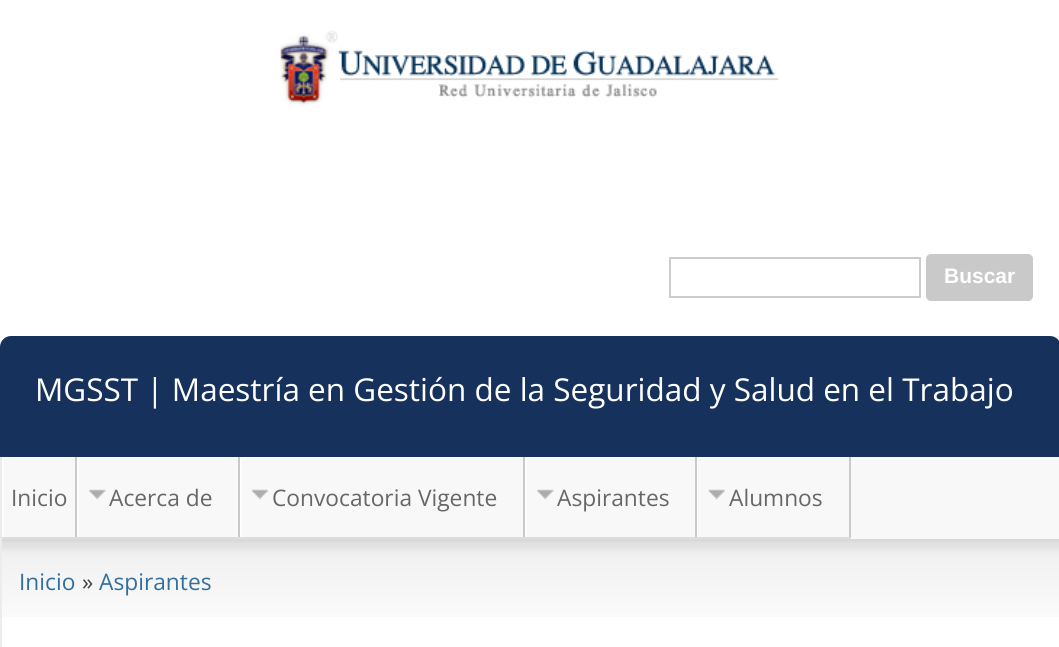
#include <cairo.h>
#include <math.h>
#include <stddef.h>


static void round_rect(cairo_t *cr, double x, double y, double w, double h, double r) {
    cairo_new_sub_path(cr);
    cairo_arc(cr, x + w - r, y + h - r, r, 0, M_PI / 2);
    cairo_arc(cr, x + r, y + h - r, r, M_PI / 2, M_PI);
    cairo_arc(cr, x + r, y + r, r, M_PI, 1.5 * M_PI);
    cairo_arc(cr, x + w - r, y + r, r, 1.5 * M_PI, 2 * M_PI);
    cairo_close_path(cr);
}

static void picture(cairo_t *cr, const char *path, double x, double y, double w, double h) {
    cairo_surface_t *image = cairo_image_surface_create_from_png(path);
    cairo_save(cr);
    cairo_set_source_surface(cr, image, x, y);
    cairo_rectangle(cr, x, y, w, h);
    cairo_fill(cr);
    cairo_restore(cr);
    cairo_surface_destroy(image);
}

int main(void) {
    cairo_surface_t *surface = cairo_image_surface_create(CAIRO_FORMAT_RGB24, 1059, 647);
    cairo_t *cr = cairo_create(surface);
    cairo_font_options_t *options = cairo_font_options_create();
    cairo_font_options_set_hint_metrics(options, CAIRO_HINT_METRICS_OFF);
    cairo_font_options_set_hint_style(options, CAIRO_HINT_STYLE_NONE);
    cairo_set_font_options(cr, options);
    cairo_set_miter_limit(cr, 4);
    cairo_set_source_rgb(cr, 1, 1, 1);
    cairo_paint(cr);
    picture(cr, "img1.png", 280, 30, 499, 77);
    cairo_rectangle(cr, 670, 258, 250, 39);
    cairo_set_source_rgb(cr, 0.8, 0.8, 0.8);
    cairo_stroke(cr);
    cairo_set_source_rgb(cr, 0.788, 0.788, 0.788);
    round_rect(cr, 926, 254, 107, 47, 5);
    cairo_fill(cr);
    cairo_select_font_face(cr, "Liberation Sans", CAIRO_FONT_SLANT_NORMAL, CAIRO_FONT_WEIGHT_BOLD);
    cairo_set_font_size(cr, 21);
    cairo_set_source_rgb(cr, 1, 1, 1);
    cairo_move_to(cr, 944, 283);
    cairo_show_text(cr, "Buscar");
    cairo_set_source_rgb(cr, 0.086, 0.196, 0.361);
    cairo_new_path(cr);
    cairo_move_to(cr, 11, 336);
    cairo_line_to(cr, 1050, 336);
    cairo_curve_to(cr, 1056, 336, 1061, 341, 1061, 347);
    cairo_line_to(cr, 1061, 457);
    cairo_line_to(cr, 0, 457);
    cairo_line_to(cr, 0, 347);
    cairo_curve_to(cr, 0, 341, 5, 336, 11, 336);
    cairo_close_path(cr);
    cairo_fill(cr);
    cairo_select_font_face(cr, "Open Sans", CAIRO_FONT_SLANT_NORMAL, CAIRO_FONT_WEIGHT_NORMAL);
    cairo_set_font_size(cr, 31.5);
    cairo_set_source_rgb(cr, 1, 1, 1);
    cairo_move_to(cr, 35, 401);
    cairo_show_text(cr, "MGSST | Maestría en Gestión de la Seguridad y Salud en el Trabajo");
    cairo_set_source_rgb(cr, 0.925, 0.925, 0.925);
    cairo_rectangle(cr, 0, 457, 2, 190);
    cairo_fill(cr);
    cairo_set_source_rgb(cr, 0.969, 0.969, 0.969);
    cairo_rectangle(cr, 4, 457, 1055, 82);
    cairo_fill(cr);
    cairo_save(cr);
    cairo_rectangle(cr, 2, 457, 73, 80);
    cairo_clip(cr);
    cairo_set_source_rgb(cr, 0.996, 0.996, 0.996);
    cairo_set_fill_rule(cr, CAIRO_FILL_RULE_EVEN_ODD);
    cairo_new_path(cr);
    cairo_move_to(cr, -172, 284);
    cairo_line_to(cr, 248, 284);
    cairo_line_to(cr, 248, 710);
    cairo_line_to(cr, -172, 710);
    cairo_close_path(cr);
    cairo_move_to(cr, 4, 458);
    cairo_line_to(cr, 77, 458);
    cairo_line_to(cr, 77, 539);
    cairo_line_to(cr, 4, 539);
    cairo_close_path(cr);
    cairo_fill(cr);
    cairo_restore(cr);
    cairo_set_source_rgb(cr, 0.788, 0.788, 0.788);
    cairo_rectangle(cr, 75, 457, 2, 82);
    cairo_fill(cr);
    cairo_set_source_rgb(cr, 0.867, 0.867, 0.867);
    cairo_rectangle(cr, 2, 537, 75, 2);
    cairo_fill(cr);
    cairo_set_font_size(cr, 22.75);
    cairo_set_source_rgb(cr, 0.408, 0.404, 0.404);
    cairo_move_to(cr, 11, 506);
    cairo_show_text(cr, "Inicio");
    picture(cr, "img2.png", 89, 489, 17, 11);
    cairo_save(cr);
    cairo_rectangle(cr, 77, 457, 161, 80);
    cairo_clip(cr);
    cairo_set_source_rgb(cr, 0.996, 0.996, 0.996);
    cairo_set_fill_rule(cr, CAIRO_FILL_RULE_EVEN_ODD);
    cairo_new_path(cr);
    cairo_move_to(cr, -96, 284);
    cairo_line_to(cr, 411, 284);
    cairo_line_to(cr, 411, 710);
    cairo_line_to(cr, -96, 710);
    cairo_close_path(cr);
    cairo_move_to(cr, 79, 458);
    cairo_line_to(cr, 240, 458);
    cairo_line_to(cr, 240, 539);
    cairo_line_to(cr, 79, 539);
    cairo_close_path(cr);
    cairo_fill(cr);
    cairo_restore(cr);
    cairo_set_source_rgb(cr, 0.788, 0.788, 0.788);
    cairo_rectangle(cr, 238, 457, 2, 82);
    cairo_fill(cr);
    cairo_set_source_rgb(cr, 0.867, 0.867, 0.867);
    cairo_rectangle(cr, 77, 537, 163, 2);
    cairo_fill(cr);
    cairo_set_source_rgb(cr, 0.408, 0.404, 0.404);
    cairo_move_to(cr, 109, 506);
    cairo_show_text(cr, "Acerca de");
    picture(cr, "img3.png", 251, 489, 18, 11);
    cairo_save(cr);
    cairo_rectangle(cr, 240, 457, 283, 80);
    cairo_clip(cr);
    cairo_set_source_rgb(cr, 0.996, 0.996, 0.996);
    cairo_set_fill_rule(cr, CAIRO_FILL_RULE_EVEN_ODD);
    cairo_new_path(cr);
    cairo_move_to(cr, 66, 284);
    cairo_line_to(cr, 696, 284);
    cairo_line_to(cr, 696, 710);
    cairo_line_to(cr, 66, 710);
    cairo_close_path(cr);
    cairo_move_to(cr, 242, 458);
    cairo_line_to(cr, 525, 458);
    cairo_line_to(cr, 525, 539);
    cairo_line_to(cr, 242, 539);
    cairo_close_path(cr);
    cairo_fill(cr);
    cairo_restore(cr);
    cairo_set_source_rgb(cr, 0.788, 0.788, 0.788);
    cairo_rectangle(cr, 523, 457, 2, 82);
    cairo_fill(cr);
    cairo_set_source_rgb(cr, 0.867, 0.867, 0.867);
    cairo_rectangle(cr, 240, 537, 285, 2);
    cairo_fill(cr);
    cairo_set_source_rgb(cr, 0.408, 0.404, 0.404);
    cairo_move_to(cr, 272, 506);
    cairo_show_text(cr, "Convocatoria Vigente");
    picture(cr, "img4.png", 537, 489, 17, 11);
    cairo_save(cr);
    cairo_rectangle(cr, 525, 457, 170, 80);
    cairo_clip(cr);
    cairo_set_source_rgb(cr, 0.996, 0.996, 0.996);
    cairo_set_fill_rule(cr, CAIRO_FILL_RULE_EVEN_ODD);
    cairo_new_path(cr);
    cairo_move_to(cr, 352, 284);
    cairo_line_to(cr, 868, 284);
    cairo_line_to(cr, 868, 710);
    cairo_line_to(cr, 352, 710);
    cairo_close_path(cr);
    cairo_move_to(cr, 527, 458);
    cairo_line_to(cr, 696, 458);
    cairo_line_to(cr, 696, 539);
    cairo_line_to(cr, 527, 539);
    cairo_close_path(cr);
    cairo_fill(cr);
    cairo_restore(cr);
    cairo_set_source_rgb(cr, 0.788, 0.788, 0.788);
    cairo_rectangle(cr, 695, 457, 2, 82);
    cairo_fill(cr);
    cairo_set_source_rgb(cr, 0.867, 0.867, 0.867);
    cairo_rectangle(cr, 525, 537, 172, 2);
    cairo_fill(cr);
    cairo_set_source_rgb(cr, 0.408, 0.404, 0.404);
    cairo_move_to(cr, 557, 506);
    cairo_show_text(cr, "Aspirantes");
    picture(cr, "img5.png", 708, 489, 17, 11);
    cairo_save(cr);
    cairo_rectangle(cr, 697, 457, 152, 80);
    cairo_clip(cr);
    cairo_set_source_rgb(cr, 0.996, 0.996, 0.996);
    cairo_set_fill_rule(cr, CAIRO_FILL_RULE_EVEN_ODD);
    cairo_new_path(cr);
    cairo_move_to(cr, 523, 284);
    cairo_line_to(cr, 1022, 284);
    cairo_line_to(cr, 1022, 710);
    cairo_line_to(cr, 523, 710);
    cairo_close_path(cr);
    cairo_move_to(cr, 698, 458);
    cairo_line_to(cr, 850, 458);
    cairo_line_to(cr, 850, 539);
    cairo_line_to(cr, 698, 539);
    cairo_close_path(cr);
    cairo_fill(cr);
    cairo_restore(cr);
    cairo_set_source_rgb(cr, 0.788, 0.788, 0.788);
    cairo_rectangle(cr, 849, 457, 2, 82);
    cairo_fill(cr);
    cairo_set_source_rgb(cr, 0.867, 0.867, 0.867);
    cairo_rectangle(cr, 697, 537, 154, 2);
    cairo_fill(cr);
    cairo_set_source_rgb(cr, 0.408, 0.404, 0.404);
    cairo_move_to(cr, 729, 506);
    cairo_show_text(cr, "Alumnos");
    picture(cr, "img6.png", 2, 539, 1057, 78);
    cairo_set_source_rgb(cr, 0.2, 0.435, 0.616);
    cairo_move_to(cr, 19, 590);
    cairo_show_text(cr, "Inicio");
    cairo_set_source_rgb(cr, 0.267, 0.267, 0.267);
    cairo_move_to(cr, 82, 590);
    cairo_show_text(cr, "»");
    cairo_set_source_rgb(cr, 0.2, 0.435, 0.616);
    cairo_move_to(cr, 99, 590);
    cairo_show_text(cr, "Aspirantes");
    cairo_surface_write_to_png(surface, "page.png");
    cairo_font_options_destroy(options);
    cairo_destroy(cr);
    cairo_surface_destroy(surface);
    return 0;
}
